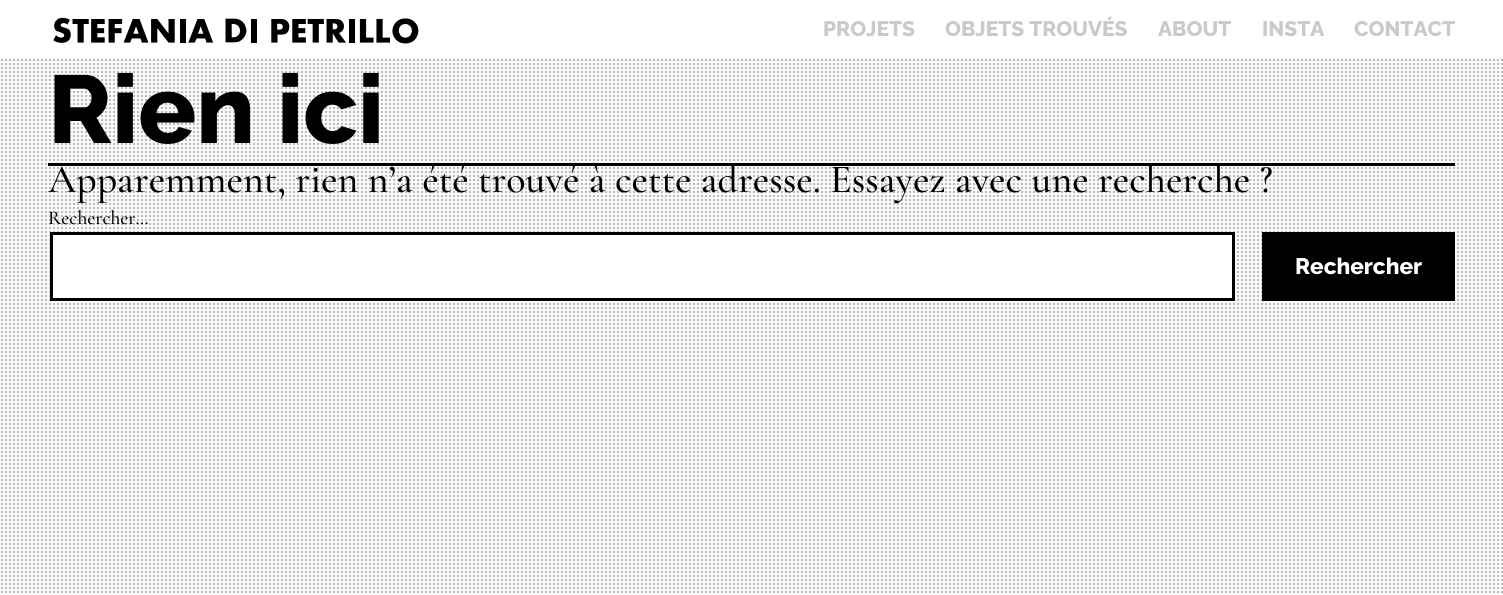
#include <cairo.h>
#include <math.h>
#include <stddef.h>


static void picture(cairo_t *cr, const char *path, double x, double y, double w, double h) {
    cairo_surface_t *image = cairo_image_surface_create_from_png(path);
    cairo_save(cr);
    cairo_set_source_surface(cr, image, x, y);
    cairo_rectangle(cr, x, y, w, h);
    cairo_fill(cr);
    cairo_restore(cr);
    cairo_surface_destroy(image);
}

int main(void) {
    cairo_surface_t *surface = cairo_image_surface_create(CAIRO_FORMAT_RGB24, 1503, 595);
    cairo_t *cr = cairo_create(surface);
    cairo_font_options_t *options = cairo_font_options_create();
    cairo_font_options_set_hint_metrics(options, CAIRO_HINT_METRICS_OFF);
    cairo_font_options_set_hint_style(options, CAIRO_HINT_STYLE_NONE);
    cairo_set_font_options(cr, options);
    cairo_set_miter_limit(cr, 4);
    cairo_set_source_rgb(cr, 0.976, 0.976, 0.976);
    cairo_paint(cr);
    picture(cr, "img1.png", 1, 59, 1502, 534);
    cairo_set_source_rgb(cr, 1, 1, 1);
    cairo_rectangle(cr, 0, 0, 1503, 57);
    cairo_fill(cr);
    picture(cr, "img2.png", 53, 17, 366, 27);
    cairo_select_font_face(cr, "Raleway Thin", CAIRO_FONT_SLANT_NORMAL, CAIRO_FONT_WEIGHT_NORMAL);
    cairo_set_font_size(cr, 21);
    cairo_set_source_rgb(cr, 0.792, 0.792, 0.792);
    cairo_move_to(cr, 823, 36);
    cairo_show_text(cr, "PROJETS");
    cairo_move_to(cr, 945, 36);
    cairo_show_text(cr, "OBJETS TROUVÉS");
    cairo_move_to(cr, 1158, 36);
    cairo_show_text(cr, "ABOUT");
    cairo_move_to(cr, 1262, 36);
    cairo_show_text(cr, "INSTA");
    cairo_move_to(cr, 1354, 36);
    cairo_show_text(cr, "CONTACT");
    cairo_set_source_rgb(cr, 0, 0, 0);
    cairo_rectangle(cr, 48, 163, 1407, 3);
    cairo_fill(cr);
    cairo_set_font_size(cr, 96);
    cairo_move_to(cr, 48, 143);
    cairo_show_text(cr, "Rien ici");
    cairo_select_font_face(cr, "Cormorant Garamond Light", CAIRO_FONT_SLANT_NORMAL, CAIRO_FONT_WEIGHT_NORMAL);
    cairo_set_font_size(cr, 40);
    cairo_move_to(cr, 48, 192);
    cairo_show_text(cr, "Apparemment, rien n’a été trouvé à cette adresse. Essayez avec une recherche ?");
    cairo_set_font_size(cr, 19.5);
    cairo_move_to(cr, 48, 224);
    cairo_show_text(cr, "Rechercher…");
    cairo_set_source_rgb(cr, 1, 1, 1);
    cairo_rectangle(cr, 51.5, 233.5, 1182, 66);
    cairo_fill_preserve(cr);
    cairo_set_source_rgb(cr, 0, 0, 0);
    cairo_set_line_width(cr, 3);
    cairo_stroke(cr);
    cairo_rectangle(cr, 1262, 232, 193, 69);
    cairo_fill(cr);
    cairo_select_font_face(cr, "Raleway Thin", CAIRO_FONT_SLANT_NORMAL, CAIRO_FONT_WEIGHT_NORMAL);
    cairo_set_font_size(cr, 22.5);
    cairo_set_source_rgb(cr, 1, 1, 1);
    cairo_move_to(cr, 1295, 274);
    cairo_show_text(cr, "Rechercher");
    cairo_surface_write_to_png(surface, "page.png");
    cairo_font_options_destroy(options);
    cairo_destroy(cr);
    cairo_surface_destroy(surface);
    return 0;
}
